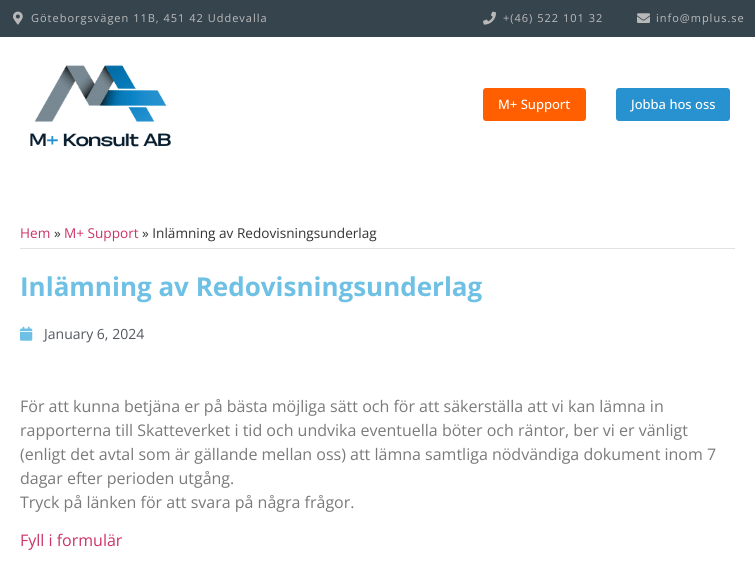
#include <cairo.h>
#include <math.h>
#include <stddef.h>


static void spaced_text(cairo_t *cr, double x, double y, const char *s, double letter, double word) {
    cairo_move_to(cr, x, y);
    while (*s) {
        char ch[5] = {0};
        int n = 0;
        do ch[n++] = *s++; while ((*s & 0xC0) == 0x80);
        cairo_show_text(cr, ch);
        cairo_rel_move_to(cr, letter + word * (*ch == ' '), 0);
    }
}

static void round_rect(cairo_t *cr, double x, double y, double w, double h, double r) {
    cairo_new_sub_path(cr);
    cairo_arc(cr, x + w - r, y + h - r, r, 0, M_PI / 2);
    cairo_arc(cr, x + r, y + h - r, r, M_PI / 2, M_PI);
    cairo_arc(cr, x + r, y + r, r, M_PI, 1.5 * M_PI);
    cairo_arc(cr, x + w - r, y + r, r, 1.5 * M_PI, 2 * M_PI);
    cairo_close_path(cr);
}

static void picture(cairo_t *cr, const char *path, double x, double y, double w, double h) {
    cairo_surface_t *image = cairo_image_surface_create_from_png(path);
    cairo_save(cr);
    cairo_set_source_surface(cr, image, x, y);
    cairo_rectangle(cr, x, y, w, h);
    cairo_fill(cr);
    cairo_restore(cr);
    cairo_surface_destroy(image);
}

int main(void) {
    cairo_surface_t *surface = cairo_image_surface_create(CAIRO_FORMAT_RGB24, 755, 581);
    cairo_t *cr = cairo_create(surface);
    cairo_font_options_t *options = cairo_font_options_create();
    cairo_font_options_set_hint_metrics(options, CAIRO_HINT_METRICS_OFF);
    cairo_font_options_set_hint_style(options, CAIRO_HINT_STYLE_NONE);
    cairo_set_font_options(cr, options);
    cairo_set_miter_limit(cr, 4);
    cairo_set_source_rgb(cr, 1, 1, 1);
    cairo_paint(cr);
    cairo_set_source_rgb(cr, 0.212, 0.267, 0.306);
    cairo_rectangle(cr, 0, 0, 755, 37);
    cairo_fill(cr);
    picture(cr, "img1.png", 13, 11, 10, 14);
    cairo_select_font_face(cr, "Open Sans", CAIRO_FONT_SLANT_NORMAL, CAIRO_FONT_WEIGHT_NORMAL);
    cairo_set_font_size(cr, 11);
    cairo_set_source_rgb(cr, 0.733, 0.733, 0.733);
    spaced_text(cr, 31, 22, "Göteborgsvägen 11B, 451 42 Uddevalla", 1, 0);
    picture(cr, "img2.png", 483, 11, 13, 14);
    spaced_text(cr, 503, 22, "+(46) 522 101 32", 1, 0);
    picture(cr, "img3.png", 637, 13, 13, 10);
    spaced_text(cr, 656, 22, "info@mplus.se", 1, 0);
    picture(cr, "img4.png", 30, 65, 141, 82);
    cairo_set_source_rgb(cr, 1, 0.373, 0);
    round_rect(cr, 483, 88, 103, 33, 3);
    cairo_fill(cr);
    cairo_select_font_face(cr, "Open Sans Medium", CAIRO_FONT_SLANT_NORMAL, CAIRO_FONT_WEIGHT_NORMAL);
    cairo_set_font_size(cr, 13);
    cairo_set_source_rgb(cr, 1, 1, 1);
    cairo_move_to(cr, 498, 109);
    cairo_show_text(cr, "M+ Support");
    cairo_set_source_rgb(cr, 0.157, 0.569, 0.812);
    round_rect(cr, 616, 88, 114, 33, 3);
    cairo_fill(cr);
    cairo_set_source_rgb(cr, 1, 1, 1);
    cairo_move_to(cr, 631, 109);
    cairo_show_text(cr, "Jobba hos oss");
    cairo_set_source_rgb(cr, 0.886, 0.886, 0.886);
    cairo_rectangle(cr, 20, 248, 715, 1);
    cairo_fill(cr);
    cairo_select_font_face(cr, "Open Sans", CAIRO_FONT_SLANT_NORMAL, CAIRO_FONT_WEIGHT_NORMAL);
    cairo_set_font_size(cr, 13.6);
    cairo_set_source_rgb(cr, 0.8, 0.2, 0.4);
    cairo_move_to(cr, 20, 238);
    cairo_show_text(cr, "Hem");
    cairo_set_source_rgb(cr, 0.2, 0.2, 0.2);
    cairo_move_to(cr, 54, 238);
    cairo_show_text(cr, "»");
    cairo_set_source_rgb(cr, 0.8, 0.2, 0.4);
    cairo_move_to(cr, 64, 238);
    cairo_show_text(cr, "M+ Support");
    cairo_set_source_rgb(cr, 0.2, 0.2, 0.2);
    cairo_move_to(cr, 142, 238);
    cairo_show_text(cr, "» Inlämning av Redovisningsunderlag");
    cairo_select_font_face(cr, "Open Sans", CAIRO_FONT_SLANT_NORMAL, CAIRO_FONT_WEIGHT_BOLD);
    cairo_set_font_size(cr, 26);
    cairo_set_source_rgb(cr, 0.431, 0.757, 0.894);
    cairo_move_to(cr, 20, 296);
    cairo_show_text(cr, "Inlämning av Redovisningsunderlag");
    picture(cr, "img5.png", 20, 326, 13, 15);
    cairo_select_font_face(cr, "Open Sans", CAIRO_FONT_SLANT_NORMAL, CAIRO_FONT_WEIGHT_NORMAL);
    cairo_set_font_size(cr, 14);
    cairo_set_source_rgb(cr, 0.329, 0.349, 0.373);
    cairo_move_to(cr, 44, 339);
    cairo_show_text(cr, "January 6, 2024");
    cairo_set_font_size(cr, 16);
    cairo_set_source_rgb(cr, 0.478, 0.478, 0.478);
    cairo_move_to(cr, 20, 412);
    cairo_show_text(cr, "För att kunna betjäna er på bästa möjliga sätt och för att säkerställa att vi kan lämna in");
    cairo_move_to(cr, 20, 436);
    cairo_show_text(cr, "rapporterna till Skatteverket i tid och undvika eventuella böter och räntor, ber vi er vänligt");
    cairo_move_to(cr, 20, 460);
    cairo_show_text(cr, "(enligt det avtal som är gällande mellan oss) att lämna samtliga nödvändiga dokument inom 7");
    cairo_move_to(cr, 20, 484);
    cairo_show_text(cr, "dagar efter perioden utgång.");
    cairo_move_to(cr, 20, 508);
    cairo_show_text(cr, "Tryck på länken för att svara på några frågor.");
    cairo_set_source_rgb(cr, 0.8, 0.2, 0.4);
    cairo_move_to(cr, 20, 546);
    cairo_show_text(cr, "Fyll i formulär");
    cairo_surface_write_to_png(surface, "page.png");
    cairo_font_options_destroy(options);
    cairo_destroy(cr);
    cairo_surface_destroy(surface);
    return 0;
}
